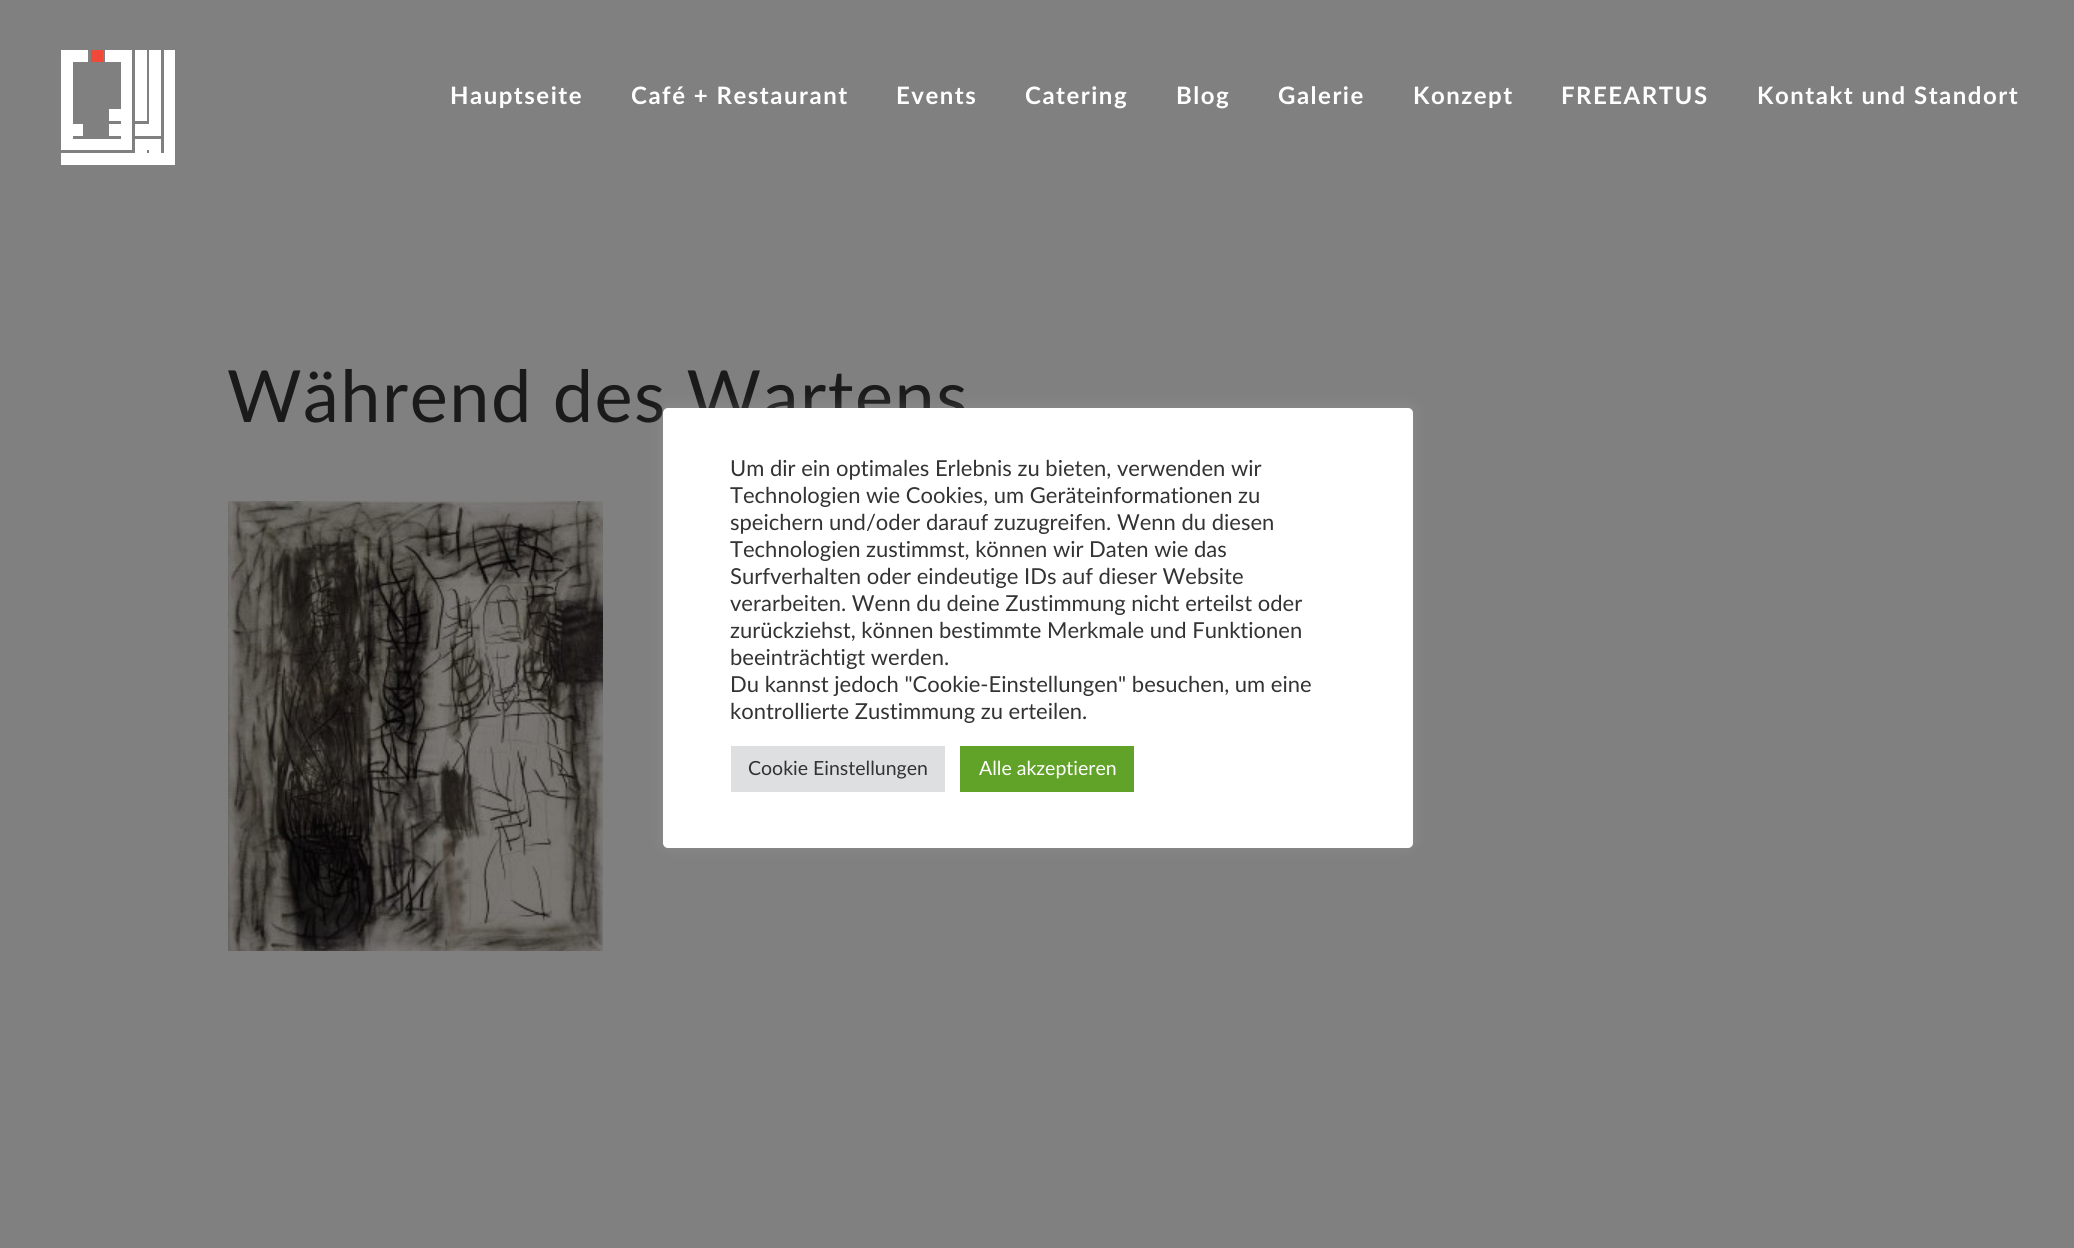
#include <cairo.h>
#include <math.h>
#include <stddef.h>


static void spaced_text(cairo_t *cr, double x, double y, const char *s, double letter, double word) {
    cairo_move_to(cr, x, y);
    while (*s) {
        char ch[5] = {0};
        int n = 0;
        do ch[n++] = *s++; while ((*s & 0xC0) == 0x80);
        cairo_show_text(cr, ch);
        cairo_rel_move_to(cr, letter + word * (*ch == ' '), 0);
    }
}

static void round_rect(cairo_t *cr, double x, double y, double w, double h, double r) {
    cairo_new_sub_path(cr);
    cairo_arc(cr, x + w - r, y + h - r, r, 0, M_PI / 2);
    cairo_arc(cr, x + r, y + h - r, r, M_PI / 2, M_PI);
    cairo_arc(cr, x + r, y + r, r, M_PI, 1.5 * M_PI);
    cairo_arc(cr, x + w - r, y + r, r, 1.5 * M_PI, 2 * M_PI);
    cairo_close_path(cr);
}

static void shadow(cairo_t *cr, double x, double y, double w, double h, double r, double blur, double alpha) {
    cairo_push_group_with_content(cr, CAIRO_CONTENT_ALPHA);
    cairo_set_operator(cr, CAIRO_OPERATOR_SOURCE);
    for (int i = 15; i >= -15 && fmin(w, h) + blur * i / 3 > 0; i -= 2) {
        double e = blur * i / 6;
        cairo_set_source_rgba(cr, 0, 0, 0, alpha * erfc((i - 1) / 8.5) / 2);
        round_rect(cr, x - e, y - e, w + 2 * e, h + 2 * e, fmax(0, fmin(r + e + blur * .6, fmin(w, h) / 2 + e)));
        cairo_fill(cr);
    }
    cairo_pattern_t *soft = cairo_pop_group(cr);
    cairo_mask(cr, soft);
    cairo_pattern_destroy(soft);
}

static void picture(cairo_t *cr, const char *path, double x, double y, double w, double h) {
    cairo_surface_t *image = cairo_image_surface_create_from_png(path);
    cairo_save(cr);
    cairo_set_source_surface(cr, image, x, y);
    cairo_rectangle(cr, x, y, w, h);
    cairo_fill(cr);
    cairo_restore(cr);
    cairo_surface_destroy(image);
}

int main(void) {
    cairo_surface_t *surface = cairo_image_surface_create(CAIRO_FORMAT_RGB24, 2074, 1248);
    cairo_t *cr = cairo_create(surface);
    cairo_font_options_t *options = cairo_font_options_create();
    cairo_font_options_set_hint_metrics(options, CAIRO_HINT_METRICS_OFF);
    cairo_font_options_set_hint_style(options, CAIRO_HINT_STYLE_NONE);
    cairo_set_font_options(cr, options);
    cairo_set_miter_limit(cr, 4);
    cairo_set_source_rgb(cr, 0.502, 0.502, 0.502);
    cairo_paint(cr);
    cairo_set_source_rgb(cr, 1, 1, 1);
    cairo_rectangle(cr, 61, 50, 27, 12);
    cairo_fill(cr);
    cairo_rectangle(cr, 73, 139, 48, 11);
    cairo_fill(cr);
    cairo_rectangle(cr, 105, 50, 27, 12);
    cairo_fill(cr);
    cairo_rectangle(cr, 61, 62, 12, 88);
    cairo_fill(cr);
    cairo_rectangle(cr, 121, 62, 11, 88);
    cairo_fill(cr);
    cairo_rectangle(cr, 73, 124, 10, 12);
    cairo_fill(cr);
    cairo_rectangle(cr, 109, 124, 12, 12);
    cairo_fill(cr);
    cairo_rectangle(cr, 109, 109, 12, 12);
    cairo_fill(cr);
    cairo_rectangle(cr, 135, 50, 12, 71);
    cairo_fill(cr);
    cairo_rectangle(cr, 149, 50, 12, 86);
    cairo_fill(cr);
    cairo_rectangle(cr, 135, 124, 14, 12);
    cairo_fill(cr);
    cairo_rectangle(cr, 164, 50, 11, 115);
    cairo_fill(cr);
    cairo_rectangle(cr, 61, 153, 103, 12);
    cairo_fill(cr);
    cairo_rectangle(cr, 135, 150, 12, 3);
    cairo_fill(cr);
    cairo_rectangle(cr, 149, 150, 12, 3);
    cairo_fill(cr);
    cairo_rectangle(cr, 135, 139, 26, 11);
    cairo_fill(cr);
    cairo_set_source_rgb(cr, 0.941, 0.286, 0.227);
    cairo_rectangle(cr, 91, 50, 12, 12);
    cairo_fill(cr);
    cairo_select_font_face(cr, "Lato", CAIRO_FONT_SLANT_NORMAL, CAIRO_FONT_WEIGHT_BOLD);
    cairo_set_font_size(cr, 24);
    cairo_set_source_rgb(cr, 1, 1, 1);
    spaced_text(cr, 450, 104, "Hauptseite", 1.5, 0);
    spaced_text(cr, 631, 104, "Café + Restaurant", 1.5, 0);
    spaced_text(cr, 896, 104, "Events", 1.5, 0);
    spaced_text(cr, 1025, 104, "Catering", 1.5, 0);
    spaced_text(cr, 1176, 104, "Blog", 1.5, 0);
    spaced_text(cr, 1278, 104, "Galerie", 1.5, 0);
    spaced_text(cr, 1413, 104, "Konzept", 1.5, 0);
    spaced_text(cr, 1561, 104, "FREEARTUS", 1.5, 0);
    spaced_text(cr, 1757, 104, "Kontakt und Standort", 1.5, 0);
    cairo_select_font_face(cr, "Lato", CAIRO_FONT_SLANT_NORMAL, CAIRO_FONT_WEIGHT_NORMAL);
    cairo_set_font_size(cr, 72);
    cairo_set_source_rgb(cr, 0.102, 0.102, 0.102);
    spaced_text(cr, 227, 422, "Während des Wartens", 1.5, 0);
    picture(cr, "img1.png", 228, 501, 375, 450);
    cairo_set_source_rgb(cr, 0.675, 0.671, 0.671);
    shadow(cr, 663, 407, 750, 439, 5, 7.5, 0.3);
    cairo_set_source_rgb(cr, 1, 1, 1);
    round_rect(cr, 663, 408, 750, 440, 5);
    cairo_fill(cr);
    cairo_set_font_size(cr, 22);
    cairo_set_source_rgb(cr, 0.2, 0.2, 0.2);
    cairo_move_to(cr, 730, 476);
    cairo_show_text(cr, "Um dir ein optimales Erlebnis zu bieten, verwenden wir");
    cairo_move_to(cr, 730, 503);
    cairo_show_text(cr, "Technologien wie Cookies, um Geräteinformationen zu");
    cairo_move_to(cr, 730, 530);
    cairo_show_text(cr, "speichern und/oder darauf zuzugreifen. Wenn du diesen");
    cairo_move_to(cr, 730, 557);
    cairo_show_text(cr, "Technologien zustimmst, können wir Daten wie das");
    cairo_move_to(cr, 730, 584);
    cairo_show_text(cr, "Surfverhalten oder eindeutige IDs auf dieser Website");
    cairo_move_to(cr, 730, 611);
    cairo_show_text(cr, "verarbeiten. Wenn du deine Zustimmung nicht erteilst oder");
    cairo_move_to(cr, 730, 638);
    cairo_show_text(cr, "zurückziehst, können bestimmte Merkmale und Funktionen");
    cairo_move_to(cr, 730, 665);
    cairo_show_text(cr, "beeinträchtigt werden.");
    cairo_move_to(cr, 730, 692);
    cairo_show_text(cr, "Du kannst jedoch \"Cookie-Einstellungen\" besuchen, um eine");
    cairo_move_to(cr, 730, 719);
    cairo_show_text(cr, "kontrollierte Zustimmung zu erteilen.");
    cairo_set_source_rgb(cr, 0.871, 0.875, 0.878);
    cairo_rectangle(cr, 731, 746, 214, 46);
    cairo_fill(cr);
    cairo_set_font_size(cr, 19.5);
    cairo_set_source_rgb(cr, 0.2, 0.2, 0.2);
    cairo_move_to(cr, 748, 775);
    cairo_show_text(cr, "Cookie Einstellungen");
    cairo_set_source_rgb(cr, 0.38, 0.635, 0.161);
    cairo_rectangle(cr, 960, 746, 174, 46);
    cairo_fill(cr);
    cairo_set_source_rgb(cr, 1, 1, 1);
    cairo_move_to(cr, 979, 775);
    cairo_show_text(cr, "Alle akzeptieren");
    cairo_surface_write_to_png(surface, "page.png");
    cairo_font_options_destroy(options);
    cairo_destroy(cr);
    cairo_surface_destroy(surface);
    return 0;
}
